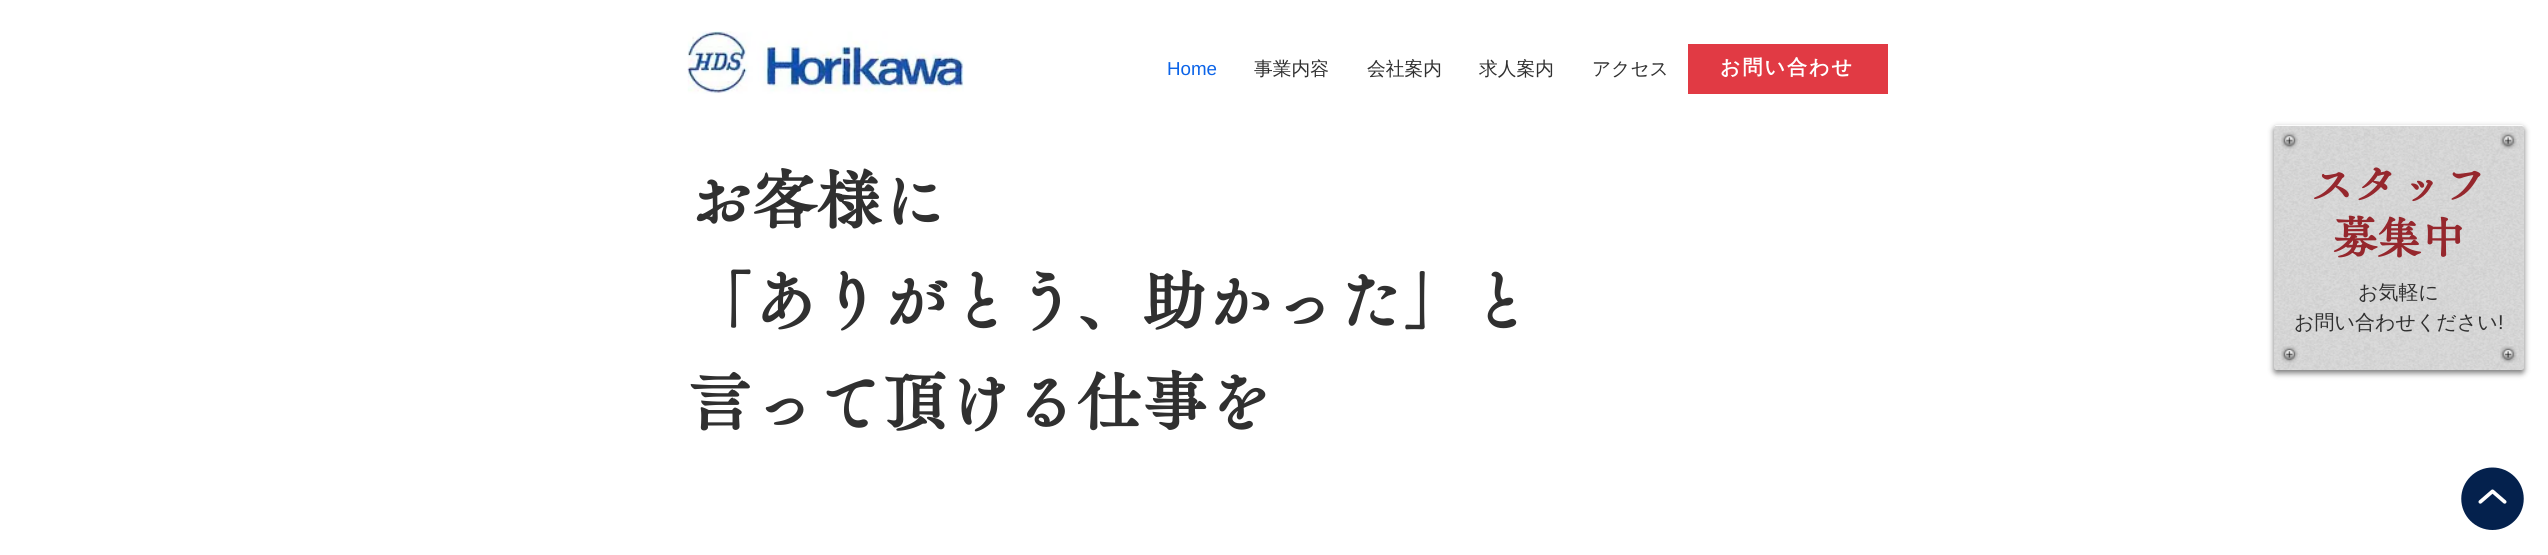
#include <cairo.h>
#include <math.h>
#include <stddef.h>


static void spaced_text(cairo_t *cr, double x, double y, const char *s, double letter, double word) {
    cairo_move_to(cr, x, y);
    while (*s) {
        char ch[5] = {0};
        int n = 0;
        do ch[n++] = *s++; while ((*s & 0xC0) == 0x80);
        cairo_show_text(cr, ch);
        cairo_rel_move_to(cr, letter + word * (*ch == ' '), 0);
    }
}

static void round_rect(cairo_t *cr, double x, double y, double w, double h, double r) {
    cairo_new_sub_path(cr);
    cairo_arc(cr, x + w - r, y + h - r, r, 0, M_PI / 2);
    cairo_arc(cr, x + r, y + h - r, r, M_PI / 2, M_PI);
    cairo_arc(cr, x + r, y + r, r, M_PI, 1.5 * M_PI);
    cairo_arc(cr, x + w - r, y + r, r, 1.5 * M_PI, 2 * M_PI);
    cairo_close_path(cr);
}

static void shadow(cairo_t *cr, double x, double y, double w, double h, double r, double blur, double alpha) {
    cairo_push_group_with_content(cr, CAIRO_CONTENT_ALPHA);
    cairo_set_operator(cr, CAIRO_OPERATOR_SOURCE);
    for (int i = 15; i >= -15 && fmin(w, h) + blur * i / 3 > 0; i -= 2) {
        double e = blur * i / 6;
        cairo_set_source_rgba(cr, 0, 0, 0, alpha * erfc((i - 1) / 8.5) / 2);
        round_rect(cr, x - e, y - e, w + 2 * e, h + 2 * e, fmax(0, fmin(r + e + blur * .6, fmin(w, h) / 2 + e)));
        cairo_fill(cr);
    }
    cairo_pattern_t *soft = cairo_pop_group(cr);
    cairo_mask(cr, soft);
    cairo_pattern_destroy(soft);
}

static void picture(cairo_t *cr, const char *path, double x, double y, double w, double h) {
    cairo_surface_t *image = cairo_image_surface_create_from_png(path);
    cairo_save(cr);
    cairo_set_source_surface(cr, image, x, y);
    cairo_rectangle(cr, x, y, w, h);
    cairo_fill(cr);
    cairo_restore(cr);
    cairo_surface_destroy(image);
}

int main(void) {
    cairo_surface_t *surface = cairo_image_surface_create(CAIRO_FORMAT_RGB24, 2548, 555);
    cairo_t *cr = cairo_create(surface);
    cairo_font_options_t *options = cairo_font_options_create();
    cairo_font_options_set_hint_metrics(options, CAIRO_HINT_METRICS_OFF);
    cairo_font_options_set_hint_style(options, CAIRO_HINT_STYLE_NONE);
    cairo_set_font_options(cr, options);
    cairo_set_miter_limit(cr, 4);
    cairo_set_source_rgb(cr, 1, 1, 1);
    cairo_paint(cr);
    picture(cr, "img1.png", 687, 31, 277, 63);
    cairo_select_font_face(cr, "Liberation Sans", CAIRO_FONT_SLANT_NORMAL, CAIRO_FONT_WEIGHT_NORMAL);
    cairo_set_font_size(cr, 18.75);
    cairo_set_source_rgb(cr, 0.047, 0.392, 0.91);
    cairo_move_to(cr, 1167, 75);
    cairo_show_text(cr, "Home");
    cairo_select_font_face(cr, "WenQuanYi Zen Hei Medium", CAIRO_FONT_SLANT_NORMAL, CAIRO_FONT_WEIGHT_NORMAL);
    cairo_set_source_rgb(cr, 0.188, 0.188, 0.188);
    cairo_move_to(cr, 1254, 75);
    cairo_show_text(cr, "事業内容");
    cairo_move_to(cr, 1367, 75);
    cairo_show_text(cr, "会社案内");
    cairo_move_to(cr, 1479, 75);
    cairo_show_text(cr, "求人案内");
    cairo_move_to(cr, 1592, 75);
    cairo_show_text(cr, "アクセス");
    cairo_set_source_rgb(cr, 0.882, 0.227, 0.267);
    cairo_rectangle(cr, 1688, 44, 200, 50);
    cairo_fill(cr);
    cairo_select_font_face(cr, "WenQuanYi Zen Hei", CAIRO_FONT_SLANT_NORMAL, CAIRO_FONT_WEIGHT_BOLD);
    cairo_set_font_size(cr, 20);
    cairo_set_source_rgb(cr, 1, 1, 1);
    spaced_text(cr, 1720, 74, "お問い合わせ", 2, 0);
    cairo_select_font_face(cr, "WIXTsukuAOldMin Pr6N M", CAIRO_FONT_SLANT_NORMAL, CAIRO_FONT_WEIGHT_BOLD);
    cairo_set_font_size(cr, 65);
    cairo_set_source_rgb(cr, 0.188, 0.188, 0.188);
    cairo_move_to(cr, 687, 224);
    cairo_show_text(cr, "お客様に");
    cairo_move_to(cr, 687, 325);
    cairo_show_text(cr, "「ありがとう、助かった」と");
    cairo_move_to(cr, 687, 426);
    cairo_show_text(cr, "言って頂ける仕事を");
    cairo_set_source_rgb(cr, 0, 0, 0);
    shadow(cr, 2274, 128, 250, 245, 2.5, 3, 0.53);
    cairo_set_source_rgb(cr, 0.859, 0.859, 0.859);
    round_rect(cr, 2274, 125, 250, 245, 2.5);
    cairo_fill(cr);
    picture(cr, "img2.png", 2274, 125, 250, 245);
    cairo_set_source_rgba(cr, 1, 1, 1, 0.92);
    cairo_new_path(cr);
    cairo_move_to(cr, 2276, 126);
    cairo_line_to(cr, 2522, 126);
    cairo_line_to(cr, 2524, 127);
    cairo_line_to(cr, 2524, 129);
    cairo_line_to(cr, 2524, 128);
    cairo_curve_to(cr, 2524, 126, 2523, 125, 2522, 125);
    cairo_line_to(cr, 2276, 125);
    cairo_curve_to(cr, 2275, 125, 2274, 126, 2274, 128);
    cairo_line_to(cr, 2274, 129);
    cairo_curve_to(cr, 2274, 127, 2275, 126, 2276, 126);
    cairo_close_path(cr);
    cairo_fill(cr);
    picture(cr, "img3.png", 2281, 132, 17, 17);
    picture(cr, "img4.png", 2500, 132, 17, 17);
    cairo_set_font_size(cr, 44);
    cairo_set_source_rgb(cr, 0.588, 0.153, 0.176);
    cairo_move_to(cr, 2311, 200);
    cairo_show_text(cr, "スタッフ");
    cairo_move_to(cr, 2333, 254);
    cairo_show_text(cr, "募集中");
    cairo_select_font_face(cr, "WenQuanYi Zen Hei Medium", CAIRO_FONT_SLANT_NORMAL, CAIRO_FONT_WEIGHT_NORMAL);
    cairo_set_font_size(cr, 20);
    cairo_set_source_rgb(cr, 0.188, 0.188, 0.188);
    cairo_move_to(cr, 2358, 299);
    cairo_show_text(cr, "お気軽に");
    cairo_move_to(cr, 2294, 329);
    cairo_show_text(cr, "お問い合わせください");
    cairo_select_font_face(cr, "Liberation Sans", CAIRO_FONT_SLANT_NORMAL, CAIRO_FONT_WEIGHT_NORMAL);
    cairo_move_to(cr, 2498, 329);
    cairo_show_text(cr, "!");
    picture(cr, "img5.png", 2281, 346, 17, 17);
    picture(cr, "img6.png", 2500, 346, 17, 17);
    picture(cr, "img7.png", 2461, 467, 63, 63);
    cairo_surface_write_to_png(surface, "page.png");
    cairo_font_options_destroy(options);
    cairo_destroy(cr);
    cairo_surface_destroy(surface);
    return 0;
}
